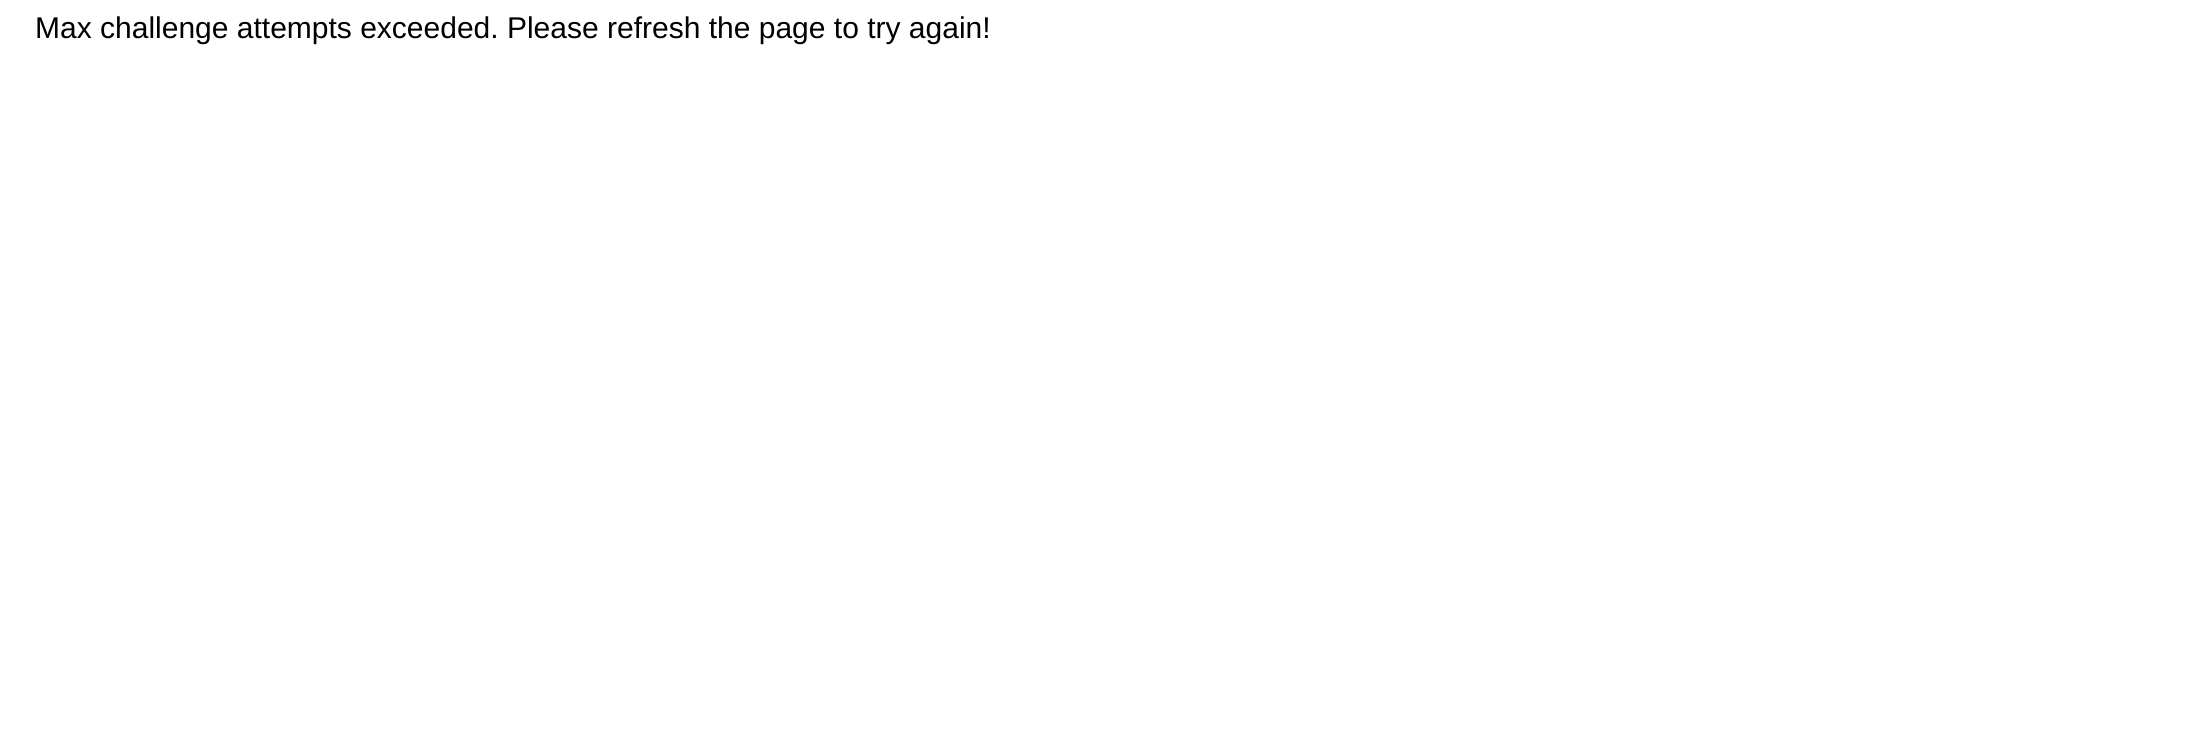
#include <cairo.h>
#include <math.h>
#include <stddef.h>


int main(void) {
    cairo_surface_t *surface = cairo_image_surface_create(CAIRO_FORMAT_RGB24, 2209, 748);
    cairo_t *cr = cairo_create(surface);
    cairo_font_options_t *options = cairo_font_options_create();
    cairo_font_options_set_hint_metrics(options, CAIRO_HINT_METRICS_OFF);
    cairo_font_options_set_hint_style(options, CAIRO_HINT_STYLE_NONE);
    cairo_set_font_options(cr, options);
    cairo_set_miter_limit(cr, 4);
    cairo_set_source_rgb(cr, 1, 1, 1);
    cairo_paint(cr);
    cairo_select_font_face(cr, "Liberation Sans", CAIRO_FONT_SLANT_NORMAL, CAIRO_FONT_WEIGHT_NORMAL);
    cairo_set_font_size(cr, 30);
    cairo_set_source_rgb(cr, 0, 0, 0);
    cairo_move_to(cr, 35, 38);
    cairo_show_text(cr, "Max challenge attempts exceeded. Please refresh the page to try again!");
    cairo_surface_write_to_png(surface, "page.png");
    cairo_font_options_destroy(options);
    cairo_destroy(cr);
    cairo_surface_destroy(surface);
    return 0;
}
